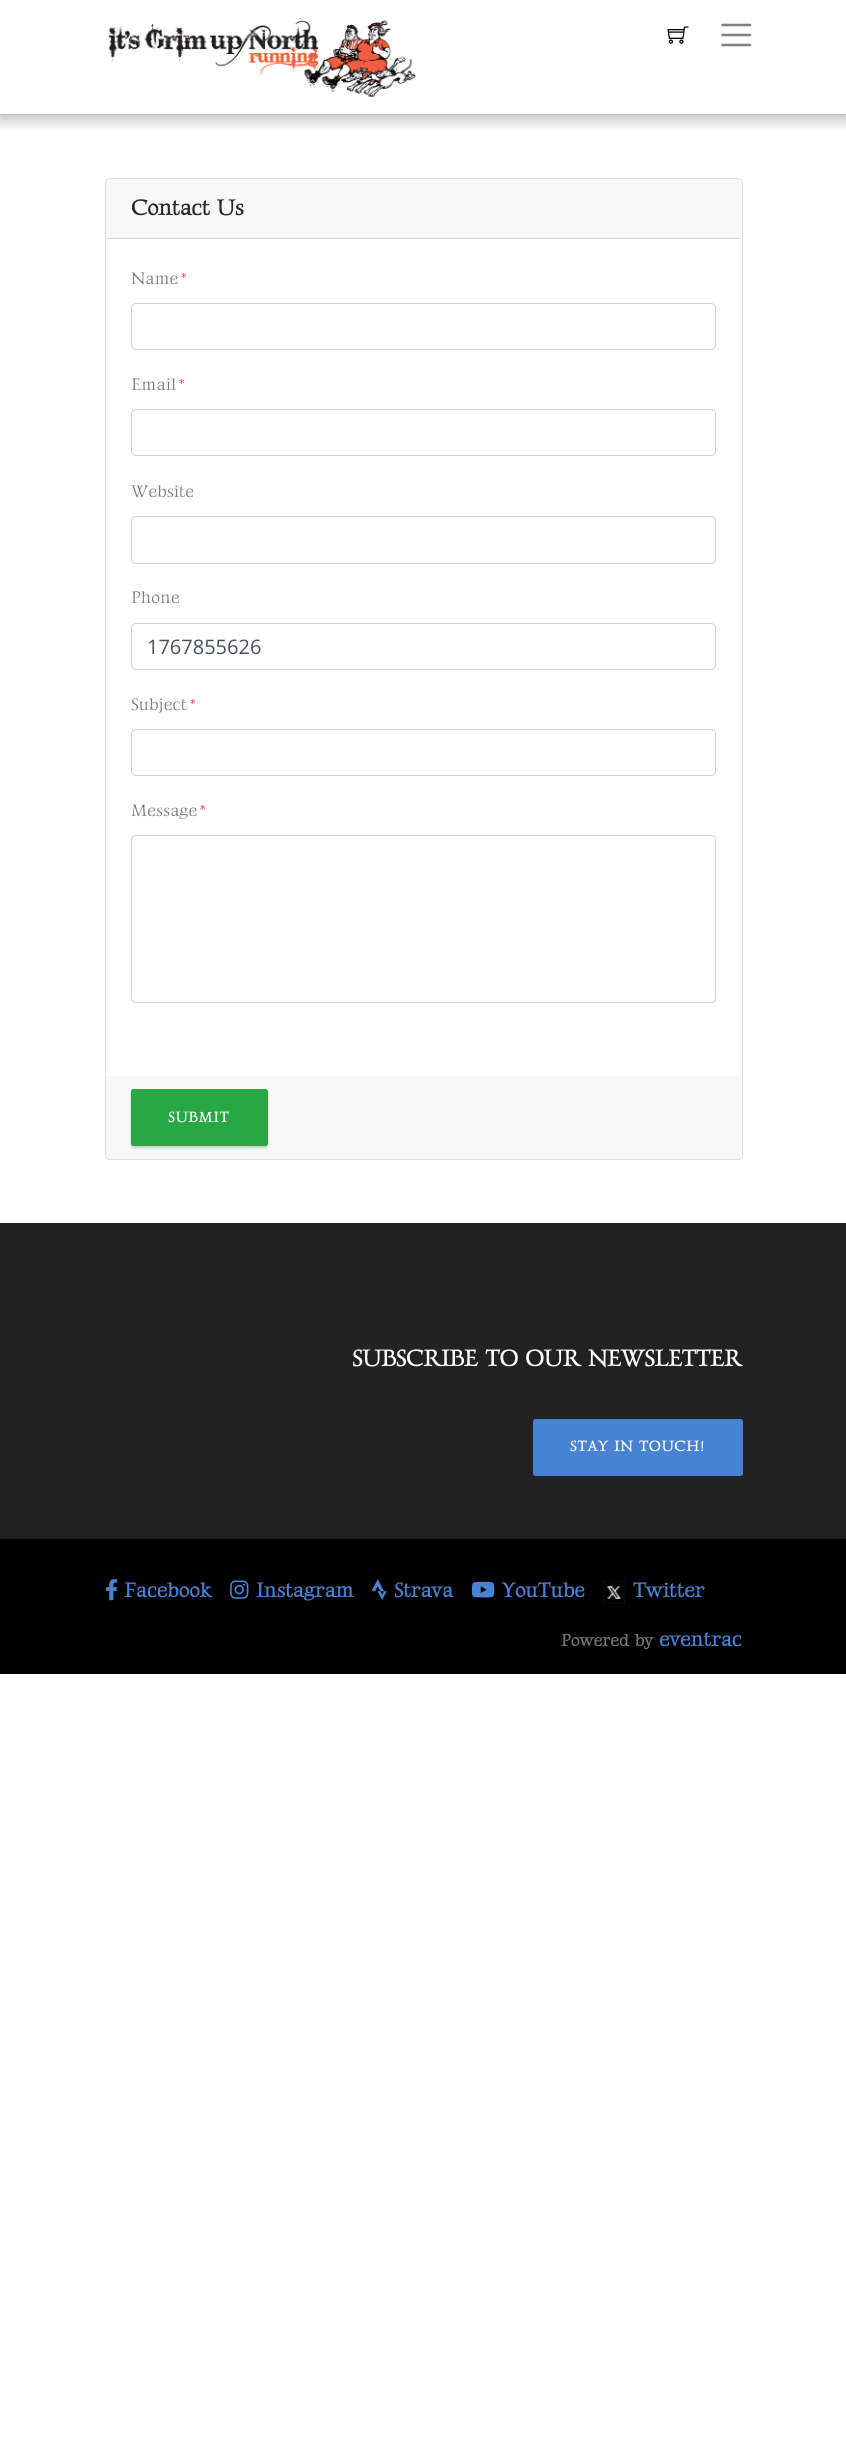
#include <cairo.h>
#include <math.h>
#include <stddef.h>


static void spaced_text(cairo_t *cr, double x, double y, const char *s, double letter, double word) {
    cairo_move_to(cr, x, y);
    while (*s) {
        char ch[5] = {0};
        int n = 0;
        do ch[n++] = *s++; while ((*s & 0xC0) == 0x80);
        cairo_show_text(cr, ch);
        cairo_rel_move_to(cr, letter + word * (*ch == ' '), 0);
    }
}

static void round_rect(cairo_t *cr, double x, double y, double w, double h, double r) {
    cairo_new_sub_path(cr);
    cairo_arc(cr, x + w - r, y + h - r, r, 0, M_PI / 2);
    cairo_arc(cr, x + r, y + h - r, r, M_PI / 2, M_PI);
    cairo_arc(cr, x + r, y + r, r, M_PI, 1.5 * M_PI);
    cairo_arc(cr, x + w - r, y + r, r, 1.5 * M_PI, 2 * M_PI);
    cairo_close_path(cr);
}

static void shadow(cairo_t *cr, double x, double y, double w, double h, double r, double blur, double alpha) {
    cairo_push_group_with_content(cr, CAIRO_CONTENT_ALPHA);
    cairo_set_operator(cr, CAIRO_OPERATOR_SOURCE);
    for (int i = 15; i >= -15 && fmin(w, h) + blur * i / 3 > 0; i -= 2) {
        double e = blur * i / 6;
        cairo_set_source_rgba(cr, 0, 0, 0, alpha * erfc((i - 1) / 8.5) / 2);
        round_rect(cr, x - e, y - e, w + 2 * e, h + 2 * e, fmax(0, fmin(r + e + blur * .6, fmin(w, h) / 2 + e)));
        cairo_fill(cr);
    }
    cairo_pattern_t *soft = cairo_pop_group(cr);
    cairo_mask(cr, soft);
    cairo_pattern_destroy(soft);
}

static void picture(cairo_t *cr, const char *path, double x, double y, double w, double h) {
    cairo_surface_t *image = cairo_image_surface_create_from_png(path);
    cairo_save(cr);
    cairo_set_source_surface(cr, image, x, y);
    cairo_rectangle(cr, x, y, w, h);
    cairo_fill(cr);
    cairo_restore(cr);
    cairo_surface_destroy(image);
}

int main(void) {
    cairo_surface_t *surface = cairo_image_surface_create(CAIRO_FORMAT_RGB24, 846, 2462);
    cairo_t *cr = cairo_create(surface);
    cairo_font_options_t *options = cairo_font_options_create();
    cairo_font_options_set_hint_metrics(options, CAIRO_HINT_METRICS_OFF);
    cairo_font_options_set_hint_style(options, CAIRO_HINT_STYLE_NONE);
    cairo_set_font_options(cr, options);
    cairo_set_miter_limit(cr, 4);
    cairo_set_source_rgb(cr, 1, 1, 1);
    cairo_paint(cr);
    cairo_save(cr);
    cairo_rectangle(cr, 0, 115, 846, 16);
    cairo_clip(cr);
    cairo_set_source_rgb(cr, 0, 0, 0);
    shadow(cr, -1, 4, 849, 117, 0, 7, 0.23);
    cairo_restore(cr);
    cairo_set_source_rgb(cr, 0.741, 0.741, 0.741);
    cairo_rectangle(cr, 0, 114, 846, 1);
    cairo_fill(cr);
    picture(cr, "img1.png", 107, 18, 309, 80);
    picture(cr, "img2.png", 667, 26, 22, 18);
    cairo_new_path(cr);
    cairo_move_to(cr, 722.5, 25);
    cairo_line_to(cr, 750, 25);
    cairo_move_to(cr, 722.5, 35);
    cairo_line_to(cr, 750, 35);
    cairo_move_to(cr, 722.5, 45);
    cairo_line_to(cr, 750, 45);
    cairo_set_source_rgb(cr, 0.502, 0.502, 0.502);
    cairo_set_line_width(cr, 2.5);
    cairo_set_line_cap(cr, CAIRO_LINE_CAP_ROUND);
    cairo_stroke(cr);
    round_rect(cr, 105.5, 178.5, 637, 981, 4.5);
    cairo_set_source_rgb(cr, 0.875, 0.875, 0.875);
    cairo_set_line_width(cr, 1);
    cairo_set_line_cap(cr, CAIRO_LINE_CAP_BUTT);
    cairo_stroke(cr);
    cairo_set_source_rgba(cr, 0, 0, 0, 0.03);
    cairo_rectangle(cr, 106, 179, 635, 59);
    cairo_fill(cr);
    cairo_set_source_rgb(cr, 0.847, 0.847, 0.847);
    cairo_rectangle(cr, 106, 238, 635, 1);
    cairo_fill(cr);
    cairo_select_font_face(cr, "Gideon Roman", CAIRO_FONT_SLANT_NORMAL, CAIRO_FONT_WEIGHT_BOLD);
    cairo_set_font_size(cr, 22.5);
    cairo_set_source_rgb(cr, 0.145, 0.145, 0.145);
    spaced_text(cr, 131, 215, "Contact Us", -0.25, 0);
    cairo_select_font_face(cr, "Gideon Roman", CAIRO_FONT_SLANT_NORMAL, CAIRO_FONT_WEIGHT_NORMAL);
    cairo_set_font_size(cr, 17.5);
    cairo_set_source_rgb(cr, 0.467, 0.467, 0.467);
    cairo_move_to(cr, 131, 284);
    cairo_show_text(cr, "Name");
    cairo_set_source_rgb(cr, 1, 0, 0);
    cairo_move_to(cr, 181, 284);
    cairo_show_text(cr, "*");
    round_rect(cr, 131.5, 303.5, 584, 46, 4.5);
    cairo_set_source_rgb(cr, 0.808, 0.831, 0.855);
    cairo_stroke(cr);
    cairo_set_source_rgb(cr, 0.467, 0.467, 0.467);
    cairo_move_to(cr, 131, 390);
    cairo_show_text(cr, "Email");
    cairo_set_source_rgb(cr, 1, 0, 0);
    cairo_move_to(cr, 179, 390);
    cairo_show_text(cr, "*");
    round_rect(cr, 131.5, 409.5, 584, 46, 4.5);
    cairo_set_source_rgb(cr, 0.808, 0.831, 0.855);
    cairo_stroke(cr);
    cairo_set_source_rgb(cr, 0.467, 0.467, 0.467);
    cairo_move_to(cr, 131, 497);
    cairo_show_text(cr, "Website");
    round_rect(cr, 131.5, 516.5, 584, 47, 4.5);
    cairo_set_source_rgb(cr, 0.808, 0.831, 0.855);
    cairo_stroke(cr);
    cairo_set_source_rgb(cr, 0.467, 0.467, 0.467);
    cairo_move_to(cr, 131, 603);
    cairo_show_text(cr, "Phone");
    round_rect(cr, 131.5, 623.5, 584, 46, 4.5);
    cairo_set_source_rgb(cr, 0.808, 0.831, 0.855);
    cairo_stroke(cr);
    cairo_select_font_face(cr, "Open Sans", CAIRO_FONT_SLANT_NORMAL, CAIRO_FONT_WEIGHT_NORMAL);
    cairo_set_font_size(cr, 20);
    cairo_set_source_rgb(cr, 0.286, 0.314, 0.341);
    cairo_move_to(cr, 147, 654);
    cairo_show_text(cr, "1767855626");
    cairo_select_font_face(cr, "Gideon Roman", CAIRO_FONT_SLANT_NORMAL, CAIRO_FONT_WEIGHT_NORMAL);
    cairo_set_font_size(cr, 17.5);
    cairo_set_source_rgb(cr, 0.467, 0.467, 0.467);
    cairo_move_to(cr, 131, 710);
    cairo_show_text(cr, "Subject");
    cairo_set_source_rgb(cr, 1, 0, 0);
    cairo_move_to(cr, 190, 710);
    cairo_show_text(cr, "*");
    round_rect(cr, 131.5, 729.5, 584, 46, 4.5);
    cairo_set_source_rgb(cr, 0.808, 0.831, 0.855);
    cairo_stroke(cr);
    cairo_set_source_rgb(cr, 0.467, 0.467, 0.467);
    cairo_move_to(cr, 131, 816);
    cairo_show_text(cr, "Message");
    cairo_set_source_rgb(cr, 1, 0, 0);
    cairo_move_to(cr, 200, 816);
    cairo_show_text(cr, "*");
    round_rect(cr, 131.5, 835.5, 584, 167, 4.5);
    cairo_set_source_rgb(cr, 0.808, 0.831, 0.855);
    cairo_stroke(cr);
    cairo_set_source_rgba(cr, 0, 0, 0, 0.03);
    cairo_rectangle(cr, 106, 1076, 635, 83);
    cairo_fill(cr);
    cairo_set_source_rgb(cr, 0, 0, 0);
    shadow(cr, 131, 1090, 137, 58, 2.5, 1, 0.18);
    cairo_set_source_rgb(cr, 0.157, 0.655, 0.271);
    round_rect(cr, 131, 1089, 137, 57, 2.5);
    cairo_fill(cr);
    cairo_select_font_face(cr, "Gideon Roman", CAIRO_FONT_SLANT_NORMAL, CAIRO_FONT_WEIGHT_BOLD);
    cairo_set_font_size(cr, 15);
    cairo_set_source_rgb(cr, 1, 1, 1);
    spaced_text(cr, 168, 1122, "SUBMIT", 0.75, 0);
    cairo_set_source_rgb(cr, 0.133, 0.133, 0.133);
    cairo_rectangle(cr, 0, 1223, 846, 316);
    cairo_fill(cr);
    cairo_set_font_size(cr, 23.75);
    cairo_set_source_rgb(cr, 1, 1, 1);
    spaced_text(cr, 352, 1366, "SUBSCRIBE TO OUR NEWSLETTER", -0.25, 0);
    cairo_set_source_rgb(cr, 0.278, 0.51, 0.827);
    round_rect(cr, 533, 1419, 210, 57, 2.5);
    cairo_fill(cr);
    cairo_set_font_size(cr, 15);
    cairo_set_source_rgb(cr, 1, 1, 1);
    spaced_text(cr, 570, 1451, "STAY IN TOUCH!", 0.75, 0);
    cairo_set_source_rgb(cr, 0, 0, 0);
    cairo_rectangle(cr, 0, 1539, 846, 135);
    cairo_fill(cr);
    picture(cr, "img3.png", 105, 1579, 13, 22);
    cairo_set_font_size(cr, 21);
    cairo_set_source_rgb(cr, 0.278, 0.51, 0.827);
    cairo_move_to(cr, 124, 1597);
    cairo_show_text(cr, "Facebook");
    picture(cr, "img4.png", 230, 1580, 19, 19);
    cairo_move_to(cr, 256, 1597);
    cairo_show_text(cr, "Instagram");
    picture(cr, "img5.png", 371, 1579, 16, 21);
    cairo_move_to(cr, 394, 1597);
    cairo_show_text(cr, "Strava");
    picture(cr, "img6.png", 471, 1581, 24, 17);
    cairo_move_to(cr, 502, 1597);
    cairo_show_text(cr, "YouTube");
    picture(cr, "img7.png", 602, 1581, 23, 23);
    cairo_move_to(cr, 633, 1597);
    cairo_show_text(cr, "Twitter");
    cairo_set_font_size(cr, 17.5);
    cairo_set_source_rgb(cr, 0.467, 0.467, 0.467);
    cairo_move_to(cr, 561, 1646);
    cairo_show_text(cr, "Powered by");
    cairo_set_font_size(cr, 21);
    cairo_set_source_rgb(cr, 0.278, 0.51, 0.827);
    cairo_move_to(cr, 659, 1646);
    cairo_show_text(cr, "eventrac");
    cairo_surface_write_to_png(surface, "page.png");
    cairo_font_options_destroy(options);
    cairo_destroy(cr);
    cairo_surface_destroy(surface);
    return 0;
}
